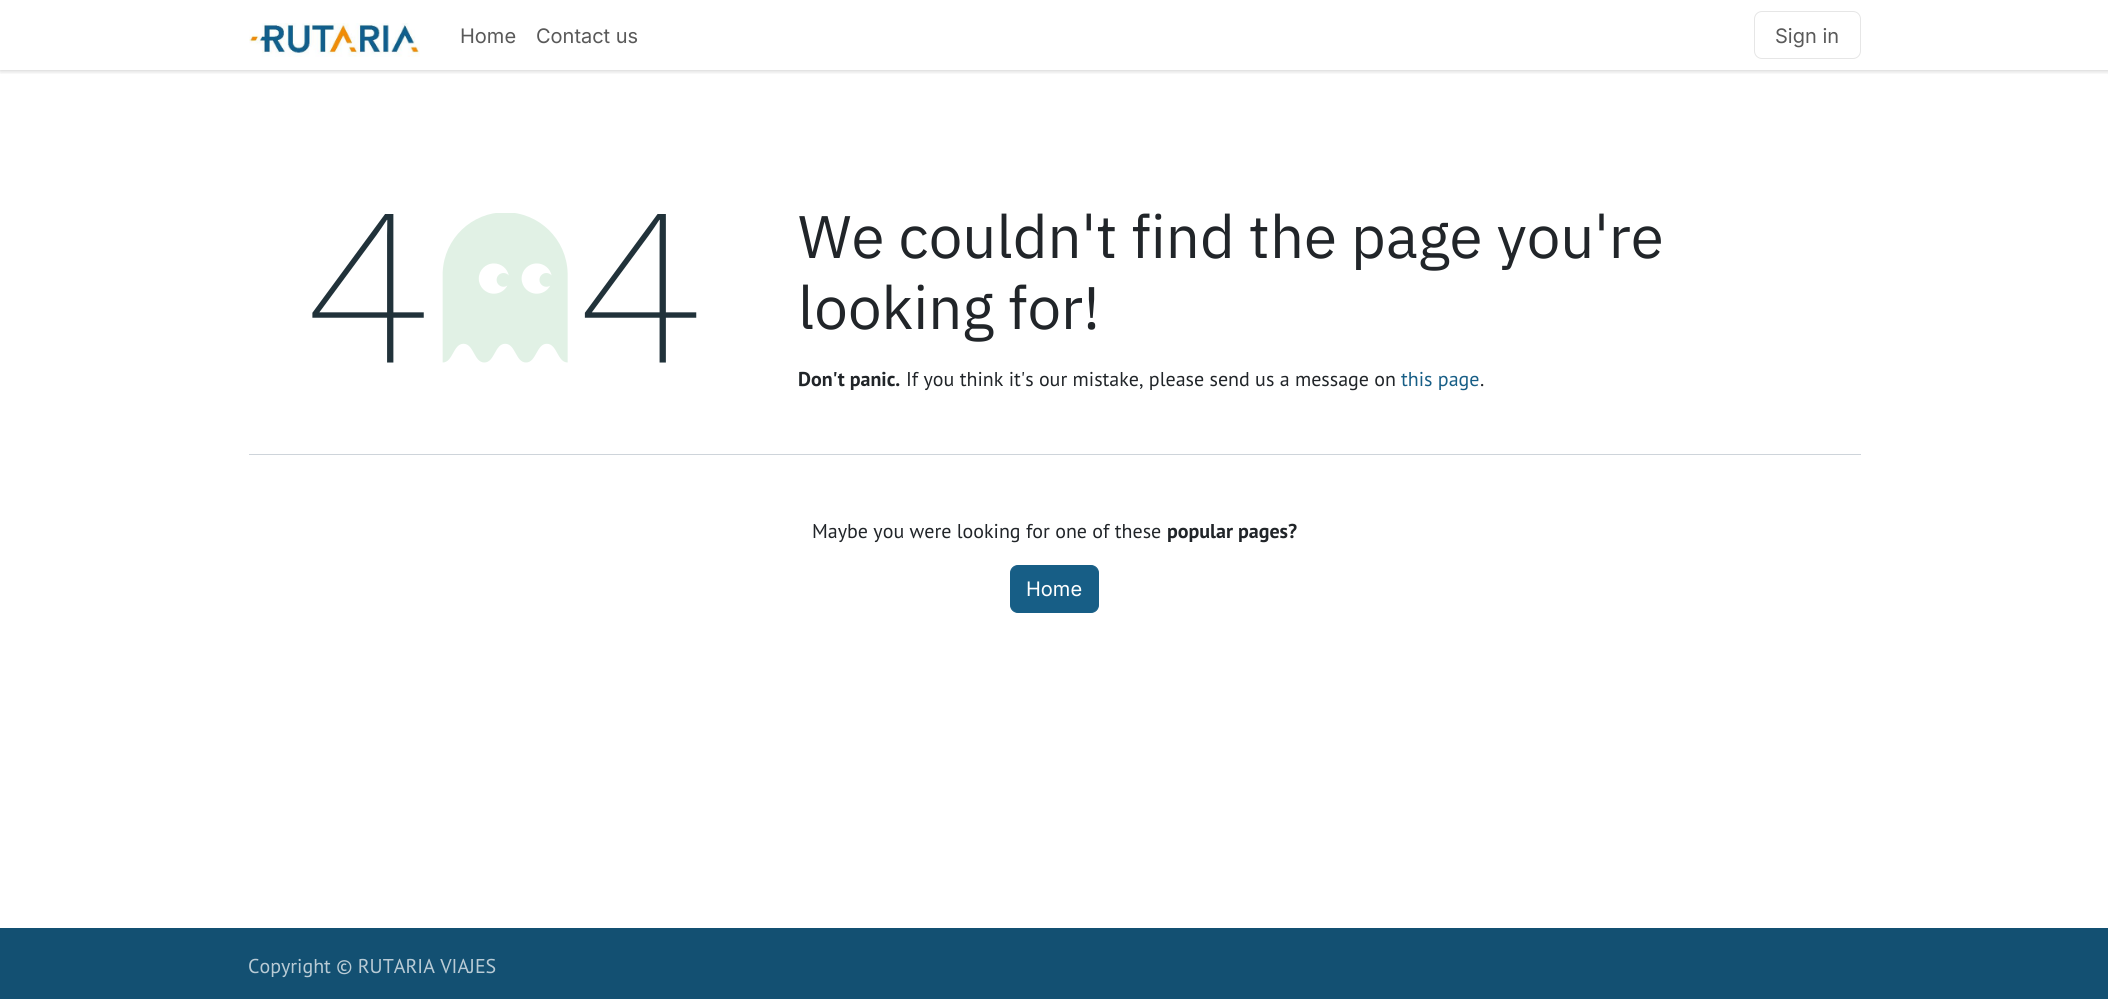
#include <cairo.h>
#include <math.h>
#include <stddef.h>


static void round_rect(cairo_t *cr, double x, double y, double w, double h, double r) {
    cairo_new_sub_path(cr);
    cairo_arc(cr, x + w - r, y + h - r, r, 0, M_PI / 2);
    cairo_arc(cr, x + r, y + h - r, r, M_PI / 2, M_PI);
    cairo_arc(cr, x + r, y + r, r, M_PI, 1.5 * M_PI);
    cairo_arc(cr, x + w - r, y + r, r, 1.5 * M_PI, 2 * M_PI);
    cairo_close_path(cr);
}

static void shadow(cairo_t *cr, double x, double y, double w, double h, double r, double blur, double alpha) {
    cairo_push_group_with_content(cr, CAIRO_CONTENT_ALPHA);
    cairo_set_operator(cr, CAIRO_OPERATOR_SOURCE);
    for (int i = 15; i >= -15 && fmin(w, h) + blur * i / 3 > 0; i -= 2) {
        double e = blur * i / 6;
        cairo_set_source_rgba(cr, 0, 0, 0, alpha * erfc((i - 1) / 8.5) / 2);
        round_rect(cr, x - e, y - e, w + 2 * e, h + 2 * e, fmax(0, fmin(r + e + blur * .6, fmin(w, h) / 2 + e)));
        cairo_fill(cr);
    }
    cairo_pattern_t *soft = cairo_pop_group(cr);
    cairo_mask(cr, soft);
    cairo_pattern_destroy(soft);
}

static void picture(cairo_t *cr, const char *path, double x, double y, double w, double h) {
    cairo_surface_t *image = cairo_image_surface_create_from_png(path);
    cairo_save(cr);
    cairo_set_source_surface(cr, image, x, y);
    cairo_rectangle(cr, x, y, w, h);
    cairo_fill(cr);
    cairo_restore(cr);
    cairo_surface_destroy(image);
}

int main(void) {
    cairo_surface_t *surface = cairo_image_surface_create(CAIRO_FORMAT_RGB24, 2108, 999);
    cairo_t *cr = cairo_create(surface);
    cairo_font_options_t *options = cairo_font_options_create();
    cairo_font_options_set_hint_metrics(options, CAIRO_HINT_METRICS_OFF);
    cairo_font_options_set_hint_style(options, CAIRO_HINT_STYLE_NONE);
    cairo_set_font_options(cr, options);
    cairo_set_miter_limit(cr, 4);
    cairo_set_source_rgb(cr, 1, 1, 1);
    cairo_paint(cr);
    cairo_save(cr);
    cairo_rectangle(cr, 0, 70, 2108, 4);
    cairo_clip(cr);
    cairo_set_source_rgb(cr, 0, 0, 0);
    shadow(cr, 0, 0, 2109, 70, 0, 3, 0.25);
    cairo_restore(cr);
    picture(cr, "img1.png", 249, 23, 171, 34);
    cairo_select_font_face(cr, "Inter", CAIRO_FONT_SLANT_NORMAL, CAIRO_FONT_WEIGHT_NORMAL);
    cairo_set_font_size(cr, 20);
    cairo_set_source_rgb(cr, 0.349, 0.349, 0.349);
    cairo_move_to(cr, 460, 43);
    cairo_show_text(cr, "Home");
    cairo_move_to(cr, 536, 43);
    cairo_show_text(cr, "Contact us");
    round_rect(cr, 1754.5, 11.5, 106, 47, 7.5);
    cairo_set_source_rgb(cr, 0.902, 0.902, 0.902);
    cairo_set_line_width(cr, 1);
    cairo_stroke(cr);
    cairo_set_source_rgb(cr, 0.349, 0.349, 0.349);
    cairo_move_to(cr, 1775, 43);
    cairo_show_text(cr, "Sign in");
    picture(cr, "img2.png", 312, 213, 385, 150);
    cairo_select_font_face(cr, "IBM Plex Sans", CAIRO_FONT_SLANT_NORMAL, CAIRO_FONT_WEIGHT_NORMAL);
    cairo_set_font_size(cr, 60);
    cairo_set_source_rgb(cr, 0.129, 0.145, 0.161);
    cairo_move_to(cr, 798, 258);
    cairo_show_text(cr, "We couldn't find the page you're");
    cairo_move_to(cr, 798, 329);
    cairo_show_text(cr, "looking for!");
    cairo_select_font_face(cr, "PT Sans", CAIRO_FONT_SLANT_NORMAL, CAIRO_FONT_WEIGHT_BOLD);
    cairo_set_font_size(cr, 20);
    cairo_move_to(cr, 798, 386);
    cairo_show_text(cr, "Don't panic.");
    cairo_select_font_face(cr, "PT Sans", CAIRO_FONT_SLANT_NORMAL, CAIRO_FONT_WEIGHT_NORMAL);
    cairo_move_to(cr, 906, 386);
    cairo_show_text(cr, "If you think it's our mistake, please send us a message on");
    cairo_set_source_rgb(cr, 0.09, 0.369, 0.525);
    cairo_move_to(cr, 1401, 386);
    cairo_show_text(cr, "this page");
    cairo_set_source_rgb(cr, 0.129, 0.145, 0.161);
    cairo_move_to(cr, 1480, 386);
    cairo_show_text(cr, ".");
    cairo_set_source_rgb(cr, 0.808, 0.831, 0.855);
    cairo_rectangle(cr, 249, 454, 1612, 1);
    cairo_fill(cr);
    cairo_set_source_rgb(cr, 0.129, 0.145, 0.161);
    cairo_move_to(cr, 812, 538);
    cairo_show_text(cr, "Maybe you were looking for one of these");
    cairo_select_font_face(cr, "PT Sans", CAIRO_FONT_SLANT_NORMAL, CAIRO_FONT_WEIGHT_BOLD);
    cairo_move_to(cr, 1167, 538);
    cairo_show_text(cr, "popular pages?");
    cairo_set_source_rgb(cr, 0.09, 0.369, 0.525);
    round_rect(cr, 1010.5, 565.5, 88, 47, 7.5);
    cairo_fill_preserve(cr);
    cairo_stroke(cr);
    cairo_select_font_face(cr, "Inter", CAIRO_FONT_SLANT_NORMAL, CAIRO_FONT_WEIGHT_NORMAL);
    cairo_set_source_rgb(cr, 1, 1, 1);
    cairo_move_to(cr, 1026, 596);
    cairo_show_text(cr, "Home");
    cairo_set_source_rgb(cr, 0.078, 0.314, 0.447);
    cairo_rectangle(cr, 0, 928, 2108, 71);
    cairo_fill(cr);
    cairo_select_font_face(cr, "PT Sans", CAIRO_FONT_SLANT_NORMAL, CAIRO_FONT_WEIGHT_NORMAL);
    cairo_set_source_rgb(cr, 0.725, 0.796, 0.835);
    cairo_move_to(cr, 248, 973);
    cairo_show_text(cr, "Copyright © RUTARIA VIAJES");
    cairo_surface_write_to_png(surface, "page.png");
    cairo_font_options_destroy(options);
    cairo_destroy(cr);
    cairo_surface_destroy(surface);
    return 0;
}
